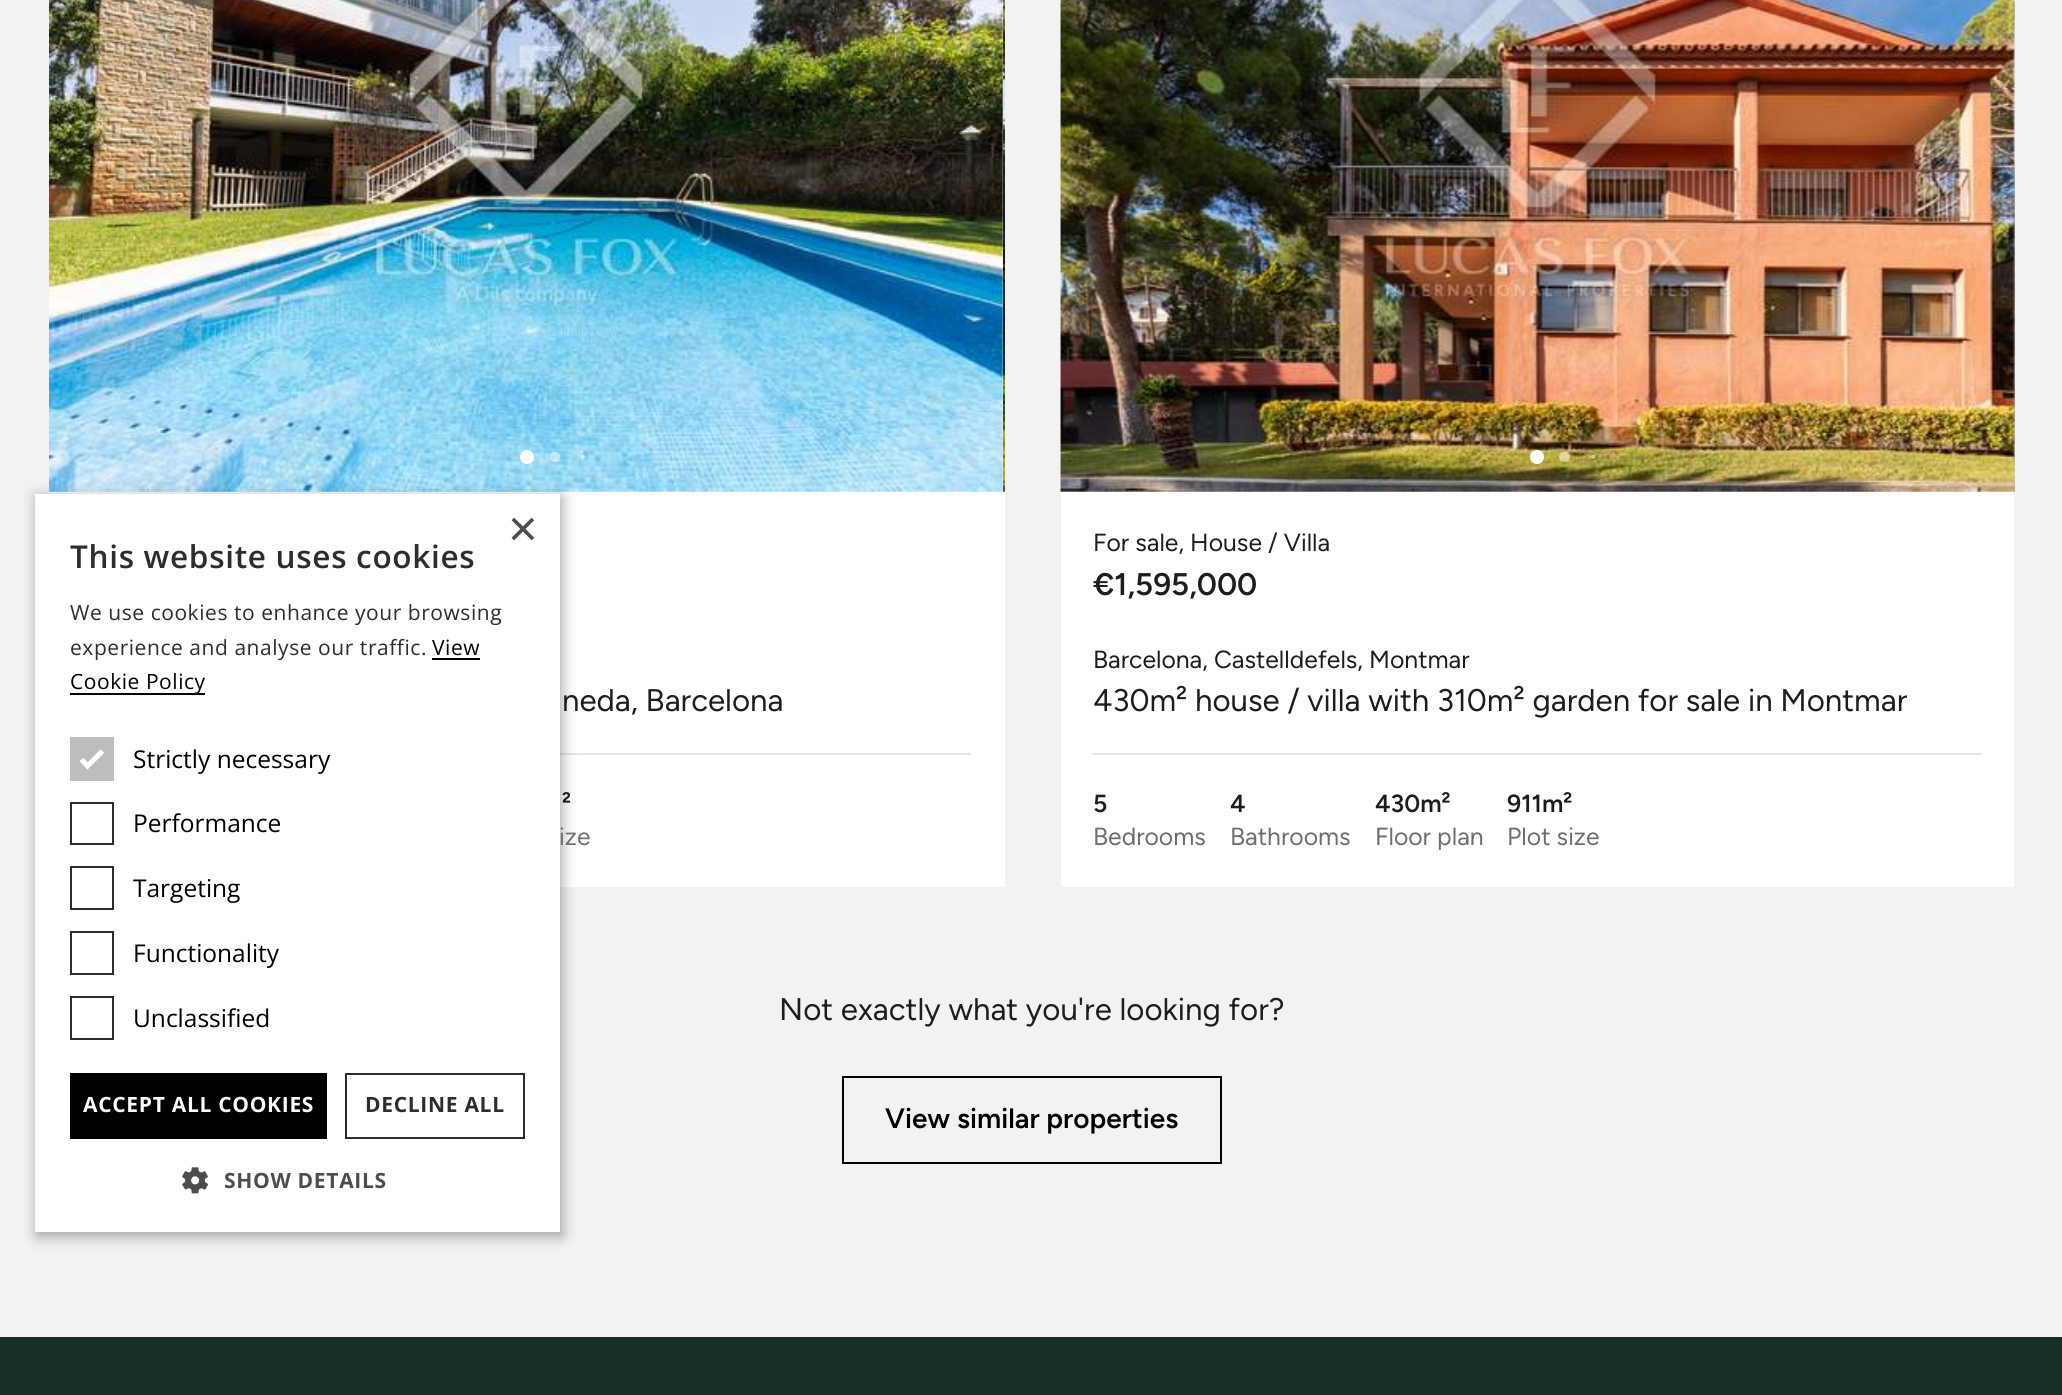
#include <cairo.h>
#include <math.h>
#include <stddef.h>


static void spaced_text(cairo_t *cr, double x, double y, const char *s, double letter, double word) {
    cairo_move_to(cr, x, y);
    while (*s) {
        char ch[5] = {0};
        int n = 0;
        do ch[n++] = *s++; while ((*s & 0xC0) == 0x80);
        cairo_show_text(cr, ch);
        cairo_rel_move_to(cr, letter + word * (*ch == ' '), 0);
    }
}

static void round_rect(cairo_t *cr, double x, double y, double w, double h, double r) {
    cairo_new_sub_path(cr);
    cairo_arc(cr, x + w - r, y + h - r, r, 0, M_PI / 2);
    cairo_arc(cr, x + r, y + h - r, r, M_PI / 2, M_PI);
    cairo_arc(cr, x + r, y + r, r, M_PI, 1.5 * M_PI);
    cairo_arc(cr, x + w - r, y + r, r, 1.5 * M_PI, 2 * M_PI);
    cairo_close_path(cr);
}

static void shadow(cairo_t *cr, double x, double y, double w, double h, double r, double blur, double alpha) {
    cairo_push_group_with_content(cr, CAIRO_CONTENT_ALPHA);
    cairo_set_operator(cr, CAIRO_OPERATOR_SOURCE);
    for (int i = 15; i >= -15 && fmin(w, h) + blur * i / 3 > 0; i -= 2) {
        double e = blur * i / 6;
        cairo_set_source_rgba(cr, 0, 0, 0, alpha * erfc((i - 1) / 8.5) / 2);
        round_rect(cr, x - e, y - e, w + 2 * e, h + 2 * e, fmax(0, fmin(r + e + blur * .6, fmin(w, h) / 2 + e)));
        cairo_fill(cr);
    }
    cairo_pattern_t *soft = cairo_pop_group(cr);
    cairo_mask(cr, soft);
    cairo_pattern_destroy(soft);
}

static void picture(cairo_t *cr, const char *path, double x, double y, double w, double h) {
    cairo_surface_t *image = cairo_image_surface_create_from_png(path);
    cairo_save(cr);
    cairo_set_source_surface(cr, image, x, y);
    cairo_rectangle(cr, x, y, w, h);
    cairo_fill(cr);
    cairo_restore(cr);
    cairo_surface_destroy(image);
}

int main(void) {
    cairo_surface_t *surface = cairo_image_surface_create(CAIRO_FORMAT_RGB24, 2062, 1395);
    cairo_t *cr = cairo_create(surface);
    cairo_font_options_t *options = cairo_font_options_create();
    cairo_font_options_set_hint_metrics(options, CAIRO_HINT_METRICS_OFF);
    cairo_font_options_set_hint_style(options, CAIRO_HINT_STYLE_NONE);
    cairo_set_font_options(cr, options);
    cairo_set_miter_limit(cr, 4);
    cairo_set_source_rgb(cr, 0.949, 0.949, 0.949);
    cairo_paint(cr);
    cairo_set_source_rgb(cr, 1, 1, 1);
    cairo_rectangle(cr, 49, 0, 956, 887);
    cairo_fill(cr);
    picture(cr, "img2.png", 49, 0, 954, 492);
    cairo_set_source_rgb(cr, 0.902, 0.902, 0.902);
    cairo_rectangle(cr, 560, 753, 411, 2);
    cairo_fill(cr);
    cairo_set_source_rgb(cr, 0, 0, 0);
    shadow(cr, 37, 497, 525, 739, 0, 7, 0.35);
    cairo_set_source_rgb(cr, 1, 1, 1);
    cairo_rectangle(cr, 35, 494, 525, 738);
    cairo_fill(cr);
    cairo_select_font_face(cr, "Liberation Sans", CAIRO_FONT_SLANT_NORMAL, CAIRO_FONT_WEIGHT_NORMAL);
    cairo_set_font_size(cr, 51);
    cairo_set_source_rgb(cr, 0.302, 0.302, 0.302);
    cairo_move_to(cr, 508, 546);
    cairo_show_text(cr, "×");
    cairo_select_font_face(cr, "Open Sans SemiBold", CAIRO_FONT_SLANT_NORMAL, CAIRO_FONT_WEIGHT_NORMAL);
    cairo_set_font_size(cr, 31.5);
    cairo_set_source_rgb(cr, 0.176, 0.176, 0.176);
    spaced_text(cr, 70, 568, "This website uses cookies", 0.7, 0);
    cairo_select_font_face(cr, "Open Sans", CAIRO_FONT_SLANT_NORMAL, CAIRO_FONT_WEIGHT_NORMAL);
    cairo_set_font_size(cr, 21);
    spaced_text(cr, 70, 620, "We use cookies to enhance your browsing", 0.55, 0);
    spaced_text(cr, 70, 655, "experience and analyse our traffic.", 0.55, 0);
    cairo_set_source_rgb(cr, 0, 0, 0);
    spaced_text(cr, 432, 655, "View", 0.55, 0);
    cairo_rectangle(cr, 432, 658, 48, 2);
    cairo_fill(cr);
    cairo_rectangle(cr, 70, 693, 135, 2);
    cairo_fill(cr);
    spaced_text(cr, 70, 689, "Cookie Policy", 0.55, 0);
    cairo_set_source_rgb(cr, 0.741, 0.741, 0.741);
    cairo_rectangle(cr, 70, 737, 44, 44);
    cairo_fill(cr);
    cairo_new_path(cr);
    cairo_move_to(cr, 81.5, 759.5);
    cairo_line_to(cr, 87.5, 766);
    cairo_line_to(cr, 102.5, 751);
    cairo_set_source_rgb(cr, 1, 1, 1);
    cairo_set_line_width(cr, 5);
    cairo_stroke(cr);
    cairo_set_font_size(cr, 24.5);
    cairo_set_source_rgb(cr, 0, 0, 0);
    cairo_move_to(cr, 133, 768);
    cairo_show_text(cr, "Strictly necessary");
    cairo_rectangle(cr, 71, 803, 42, 41);
    cairo_set_source_rgb(cr, 0.176, 0.176, 0.176);
    cairo_set_line_width(cr, 2);
    cairo_stroke(cr);
    cairo_set_source_rgb(cr, 0, 0, 0);
    cairo_move_to(cr, 133, 832);
    cairo_show_text(cr, "Performance");
    cairo_rectangle(cr, 71, 867, 42, 42);
    cairo_set_source_rgb(cr, 0.176, 0.176, 0.176);
    cairo_stroke(cr);
    cairo_set_source_rgb(cr, 0, 0, 0);
    cairo_move_to(cr, 133, 897);
    cairo_show_text(cr, "Targeting");
    cairo_rectangle(cr, 71, 932, 42, 42);
    cairo_set_source_rgb(cr, 0.176, 0.176, 0.176);
    cairo_stroke(cr);
    cairo_set_source_rgb(cr, 0, 0, 0);
    cairo_move_to(cr, 133, 962);
    cairo_show_text(cr, "Functionality");
    cairo_rectangle(cr, 71, 997, 42, 42);
    cairo_set_source_rgb(cr, 0.176, 0.176, 0.176);
    cairo_stroke(cr);
    cairo_set_source_rgb(cr, 0, 0, 0);
    cairo_move_to(cr, 133, 1027);
    cairo_show_text(cr, "Unclassified");
    cairo_rectangle(cr, 70, 1073, 257, 66);
    cairo_fill(cr);
    cairo_select_font_face(cr, "Open Sans", CAIRO_FONT_SLANT_NORMAL, CAIRO_FONT_WEIGHT_BOLD);
    cairo_set_font_size(cr, 21);
    cairo_set_source_rgb(cr, 1, 1, 1);
    spaced_text(cr, 83, 1112, "ACCEPT ALL COOKIES", 0.7, 0);
    cairo_rectangle(cr, 346, 1074, 178, 64);
    cairo_set_source_rgb(cr, 0.176, 0.176, 0.176);
    cairo_stroke(cr);
    spaced_text(cr, 365, 1112, "DECLINE ALL", 0.7, 0);
    picture(cr, "img1.png", 182, 1167, 26, 27);
    cairo_set_source_rgb(cr, 0.302, 0.302, 0.302);
    spaced_text(cr, 224, 1188, "SHOW DETAILS", 0.7, 0);
    picture(cr, "img3.png", 1003, 0, 2, 492);
    cairo_set_source_rgb(cr, 1, 1, 1);
    cairo_arc(cr, 527, 457, 7, 0, 2 * M_PI);
    cairo_fill(cr);
    cairo_set_source_rgba(cr, 1, 1, 1, 0.5);
    cairo_arc(cr, 555, 457, 5, 0, 2 * M_PI);
    cairo_fill(cr);
    cairo_arc(cr, 583, 457, 2, 0, 2 * M_PI);
    cairo_fill(cr);
    cairo_select_font_face(cr, "Figtree Light", CAIRO_FONT_SLANT_NORMAL, CAIRO_FONT_WEIGHT_NORMAL);
    cairo_set_font_size(cr, 31.25);
    cairo_set_source_rgb(cr, 0.114, 0.114, 0.106);
    cairo_move_to(cr, 562, 711);
    cairo_show_text(cr, "neda, Barcelona");
    cairo_select_font_face(cr, "Figtree SemiBold", CAIRO_FONT_SLANT_NORMAL, CAIRO_FONT_WEIGHT_NORMAL);
    cairo_set_font_size(cr, 24.75);
    cairo_move_to(cr, 562, 812);
    cairo_show_text(cr, "²");
    cairo_select_font_face(cr, "Figtree Light", CAIRO_FONT_SLANT_NORMAL, CAIRO_FONT_WEIGHT_NORMAL);
    cairo_set_source_rgb(cr, 0.431, 0.431, 0.431);
    cairo_move_to(cr, 559, 845);
    cairo_show_text(cr, "ize");
    cairo_set_source_rgb(cr, 1, 1, 1);
    cairo_rectangle(cr, 1061, 0, 953, 887);
    cairo_fill(cr);
    picture(cr, "img4.png", 1060, 0, 955, 492);
    picture(cr, "img5.png", 2013, 0, 2, 492);
    cairo_arc(cr, 1537, 457, 7, 0, 2 * M_PI);
    cairo_fill(cr);
    cairo_set_source_rgba(cr, 1, 1, 1, 0.5);
    round_rect(cr, 1559, 452, 11, 10, 5);
    cairo_fill(cr);
    cairo_arc(cr, 1593, 457, 2, 0, 2 * M_PI);
    cairo_fill(cr);
    cairo_set_source_rgb(cr, 0.114, 0.114, 0.106);
    cairo_move_to(cr, 1093, 551);
    cairo_show_text(cr, "For sale, House / Villa");
    cairo_select_font_face(cr, "Figtree SemiBold", CAIRO_FONT_SLANT_NORMAL, CAIRO_FONT_WEIGHT_NORMAL);
    cairo_set_font_size(cr, 31.25);
    cairo_move_to(cr, 1093, 595);
    cairo_show_text(cr, "€1,595,000");
    cairo_select_font_face(cr, "Figtree Light", CAIRO_FONT_SLANT_NORMAL, CAIRO_FONT_WEIGHT_NORMAL);
    cairo_set_font_size(cr, 24.75);
    cairo_move_to(cr, 1093, 668);
    cairo_show_text(cr, "Barcelona, Castelldefels, Montmar");
    cairo_set_font_size(cr, 31.25);
    cairo_move_to(cr, 1093, 711);
    cairo_show_text(cr, "430m² house / villa with 310m² garden for sale in Montmar");
    cairo_set_source_rgb(cr, 0.902, 0.902, 0.902);
    cairo_rectangle(cr, 1092, 753, 889, 2);
    cairo_fill(cr);
    cairo_select_font_face(cr, "Figtree SemiBold", CAIRO_FONT_SLANT_NORMAL, CAIRO_FONT_WEIGHT_NORMAL);
    cairo_set_font_size(cr, 24.75);
    cairo_set_source_rgb(cr, 0.114, 0.114, 0.106);
    cairo_move_to(cr, 1093, 812);
    cairo_show_text(cr, "5");
    cairo_select_font_face(cr, "Figtree Light", CAIRO_FONT_SLANT_NORMAL, CAIRO_FONT_WEIGHT_NORMAL);
    cairo_set_source_rgb(cr, 0.431, 0.431, 0.431);
    cairo_move_to(cr, 1093, 845);
    cairo_show_text(cr, "Bedrooms");
    cairo_select_font_face(cr, "Figtree SemiBold", CAIRO_FONT_SLANT_NORMAL, CAIRO_FONT_WEIGHT_NORMAL);
    cairo_set_source_rgb(cr, 0.114, 0.114, 0.106);
    cairo_move_to(cr, 1230, 812);
    cairo_show_text(cr, "4");
    cairo_select_font_face(cr, "Figtree Light", CAIRO_FONT_SLANT_NORMAL, CAIRO_FONT_WEIGHT_NORMAL);
    cairo_set_source_rgb(cr, 0.431, 0.431, 0.431);
    cairo_move_to(cr, 1230, 845);
    cairo_show_text(cr, "Bathrooms");
    cairo_select_font_face(cr, "Figtree SemiBold", CAIRO_FONT_SLANT_NORMAL, CAIRO_FONT_WEIGHT_NORMAL);
    cairo_set_source_rgb(cr, 0.114, 0.114, 0.106);
    cairo_move_to(cr, 1375, 812);
    cairo_show_text(cr, "430m²");
    cairo_select_font_face(cr, "Figtree Light", CAIRO_FONT_SLANT_NORMAL, CAIRO_FONT_WEIGHT_NORMAL);
    cairo_set_source_rgb(cr, 0.431, 0.431, 0.431);
    cairo_move_to(cr, 1375, 845);
    cairo_show_text(cr, "Floor plan");
    cairo_select_font_face(cr, "Figtree SemiBold", CAIRO_FONT_SLANT_NORMAL, CAIRO_FONT_WEIGHT_NORMAL);
    cairo_set_source_rgb(cr, 0.114, 0.114, 0.106);
    cairo_move_to(cr, 1507, 812);
    cairo_show_text(cr, "911m²");
    cairo_select_font_face(cr, "Figtree Light", CAIRO_FONT_SLANT_NORMAL, CAIRO_FONT_WEIGHT_NORMAL);
    cairo_set_source_rgb(cr, 0.431, 0.431, 0.431);
    cairo_move_to(cr, 1507, 845);
    cairo_show_text(cr, "Plot size");
    cairo_set_font_size(cr, 31.25);
    cairo_set_source_rgb(cr, 0.114, 0.114, 0.106);
    cairo_move_to(cr, 779, 1020);
    cairo_show_text(cr, "Not exactly what you're looking for?");
    cairo_rectangle(cr, 843, 1077, 378, 86);
    cairo_set_source_rgb(cr, 0, 0, 0);
    cairo_stroke(cr);
    cairo_select_font_face(cr, "Figtree SemiBold", CAIRO_FONT_SLANT_NORMAL, CAIRO_FONT_WEIGHT_NORMAL);
    cairo_set_font_size(cr, 28);
    cairo_move_to(cr, 885, 1128);
    cairo_show_text(cr, "View similar properties");
    cairo_set_source_rgb(cr, 0.09, 0.184, 0.157);
    cairo_rectangle(cr, 0, 1337, 2062, 58);
    cairo_fill(cr);
    cairo_surface_write_to_png(surface, "page.png");
    cairo_font_options_destroy(options);
    cairo_destroy(cr);
    cairo_surface_destroy(surface);
    return 0;
}
